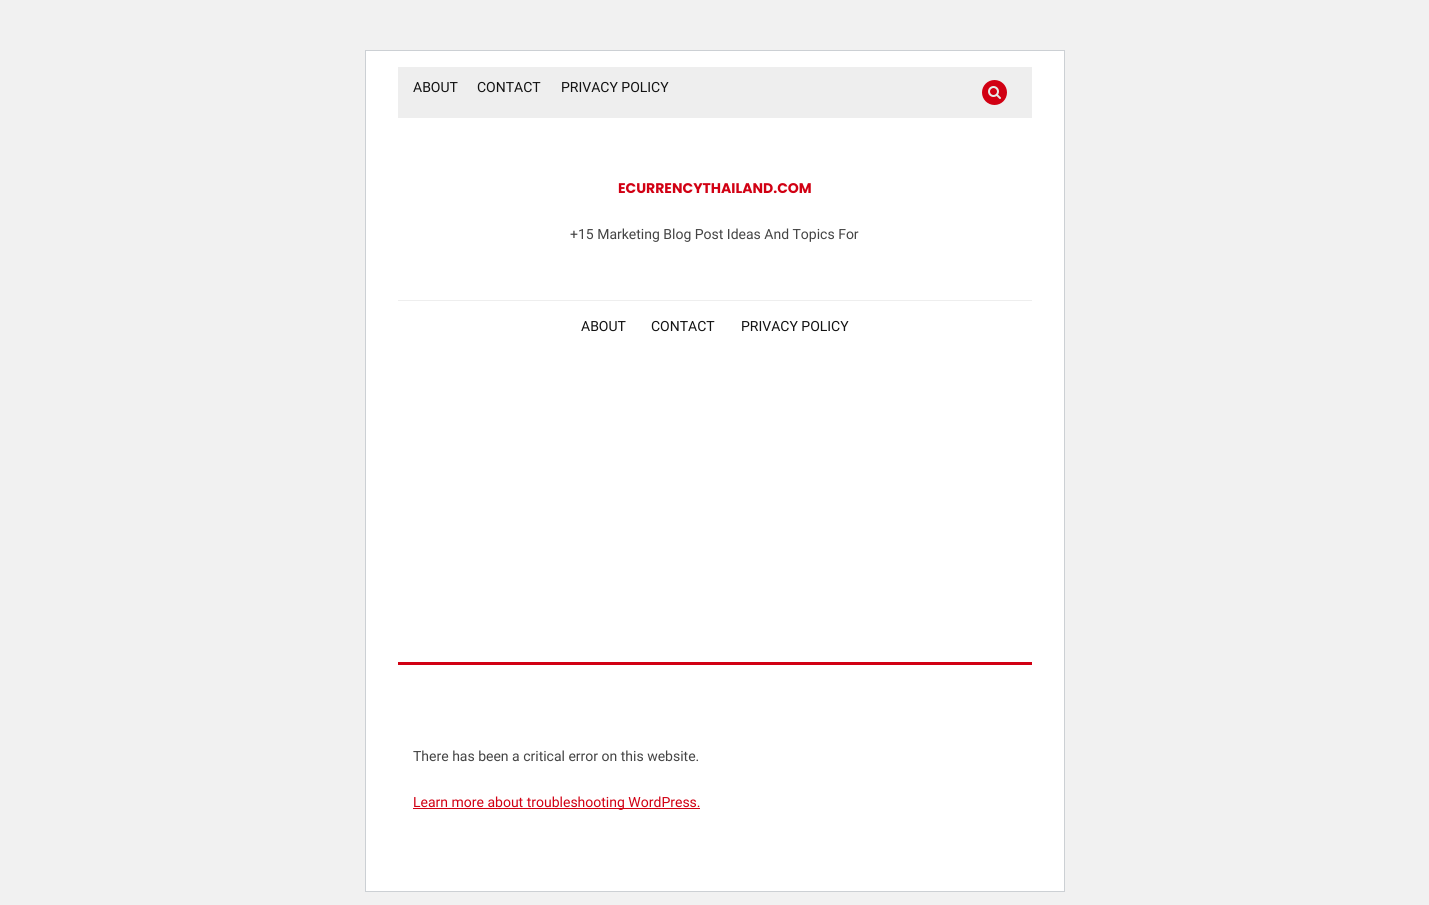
#include <cairo.h>
#include <math.h>
#include <stddef.h>


static void picture(cairo_t *cr, const char *path, double x, double y, double w, double h) {
    cairo_surface_t *image = cairo_image_surface_create_from_png(path);
    cairo_save(cr);
    cairo_set_source_surface(cr, image, x, y);
    cairo_rectangle(cr, x, y, w, h);
    cairo_fill(cr);
    cairo_restore(cr);
    cairo_surface_destroy(image);
}

int main(void) {
    cairo_surface_t *surface = cairo_image_surface_create(CAIRO_FORMAT_RGB24, 1429, 905);
    cairo_t *cr = cairo_create(surface);
    cairo_font_options_t *options = cairo_font_options_create();
    cairo_font_options_set_hint_metrics(options, CAIRO_HINT_METRICS_OFF);
    cairo_font_options_set_hint_style(options, CAIRO_HINT_STYLE_NONE);
    cairo_set_font_options(cr, options);
    cairo_set_miter_limit(cr, 4);
    cairo_set_source_rgb(cr, 0.945, 0.945, 0.945);
    cairo_paint(cr);
    cairo_set_source_rgb(cr, 1, 1, 1);
    cairo_rectangle(cr, 365.5, 50.5, 699, 841);
    cairo_fill_preserve(cr);
    cairo_set_source_rgb(cr, 0.8, 0.816, 0.831);
    cairo_set_line_width(cr, 1);
    cairo_stroke(cr);
    cairo_set_source_rgb(cr, 0.933, 0.933, 0.933);
    cairo_rectangle(cr, 398, 67, 634, 51);
    cairo_fill(cr);
    cairo_select_font_face(cr, "Roboto", CAIRO_FONT_SLANT_NORMAL, CAIRO_FONT_WEIGHT_NORMAL);
    cairo_set_font_size(cr, 14);
    cairo_set_source_rgb(cr, 0.078, 0.078, 0.075);
    cairo_move_to(cr, 413, 92);
    cairo_show_text(cr, "ABOUT");
    cairo_move_to(cr, 477, 92);
    cairo_show_text(cr, "CONTACT");
    cairo_move_to(cr, 561, 92);
    cairo_show_text(cr, "PRIVACY POLICY");
    cairo_set_source_rgb(cr, 0.82, 0, 0.078);
    cairo_new_path(cr);
    cairo_arc(cr, 994.5, 92.5, 12.5, 0, 2 * M_PI);
    cairo_fill(cr);
    picture(cr, "img1.png", 988, 86, 13, 13);
    cairo_set_source_rgb(cr, 0.933, 0.933, 0.933);
    cairo_rectangle(cr, 398, 300, 634, 1);
    cairo_fill(cr);
    cairo_select_font_face(cr, "Poppins", CAIRO_FONT_SLANT_NORMAL, CAIRO_FONT_WEIGHT_BOLD);
    cairo_set_source_rgb(cr, 0.82, 0, 0.078);
    cairo_move_to(cr, 618, 193);
    cairo_show_text(cr, "ECURRENCYTHAILAND.COM");
    cairo_select_font_face(cr, "Roboto", CAIRO_FONT_SLANT_NORMAL, CAIRO_FONT_WEIGHT_NORMAL);
    cairo_set_source_rgb(cr, 0.267, 0.267, 0.267);
    cairo_move_to(cr, 570, 239);
    cairo_show_text(cr, "+15 Marketing Blog Post Ideas And Topics For");
    cairo_set_source_rgb(cr, 0.82, 0, 0.078);
    cairo_rectangle(cr, 398, 662, 634, 3);
    cairo_fill(cr);
    cairo_set_source_rgb(cr, 0.078, 0.078, 0.075);
    cairo_move_to(cr, 581, 331);
    cairo_show_text(cr, "ABOUT");
    cairo_move_to(cr, 651, 331);
    cairo_show_text(cr, "CONTACT");
    cairo_move_to(cr, 741, 331);
    cairo_show_text(cr, "PRIVACY POLICY");
    cairo_set_source_rgb(cr, 0.267, 0.267, 0.267);
    cairo_move_to(cr, 413, 761);
    cairo_show_text(cr, "There has been a critical error on this website.");
    cairo_set_source_rgb(cr, 0.82, 0, 0.078);
    cairo_rectangle(cr, 413, 808, 287, 1);
    cairo_fill(cr);
    cairo_move_to(cr, 413, 807);
    cairo_show_text(cr, "Learn more about troubleshooting WordPress.");
    cairo_surface_write_to_png(surface, "page.png");
    cairo_font_options_destroy(options);
    cairo_destroy(cr);
    cairo_surface_destroy(surface);
    return 0;
}
